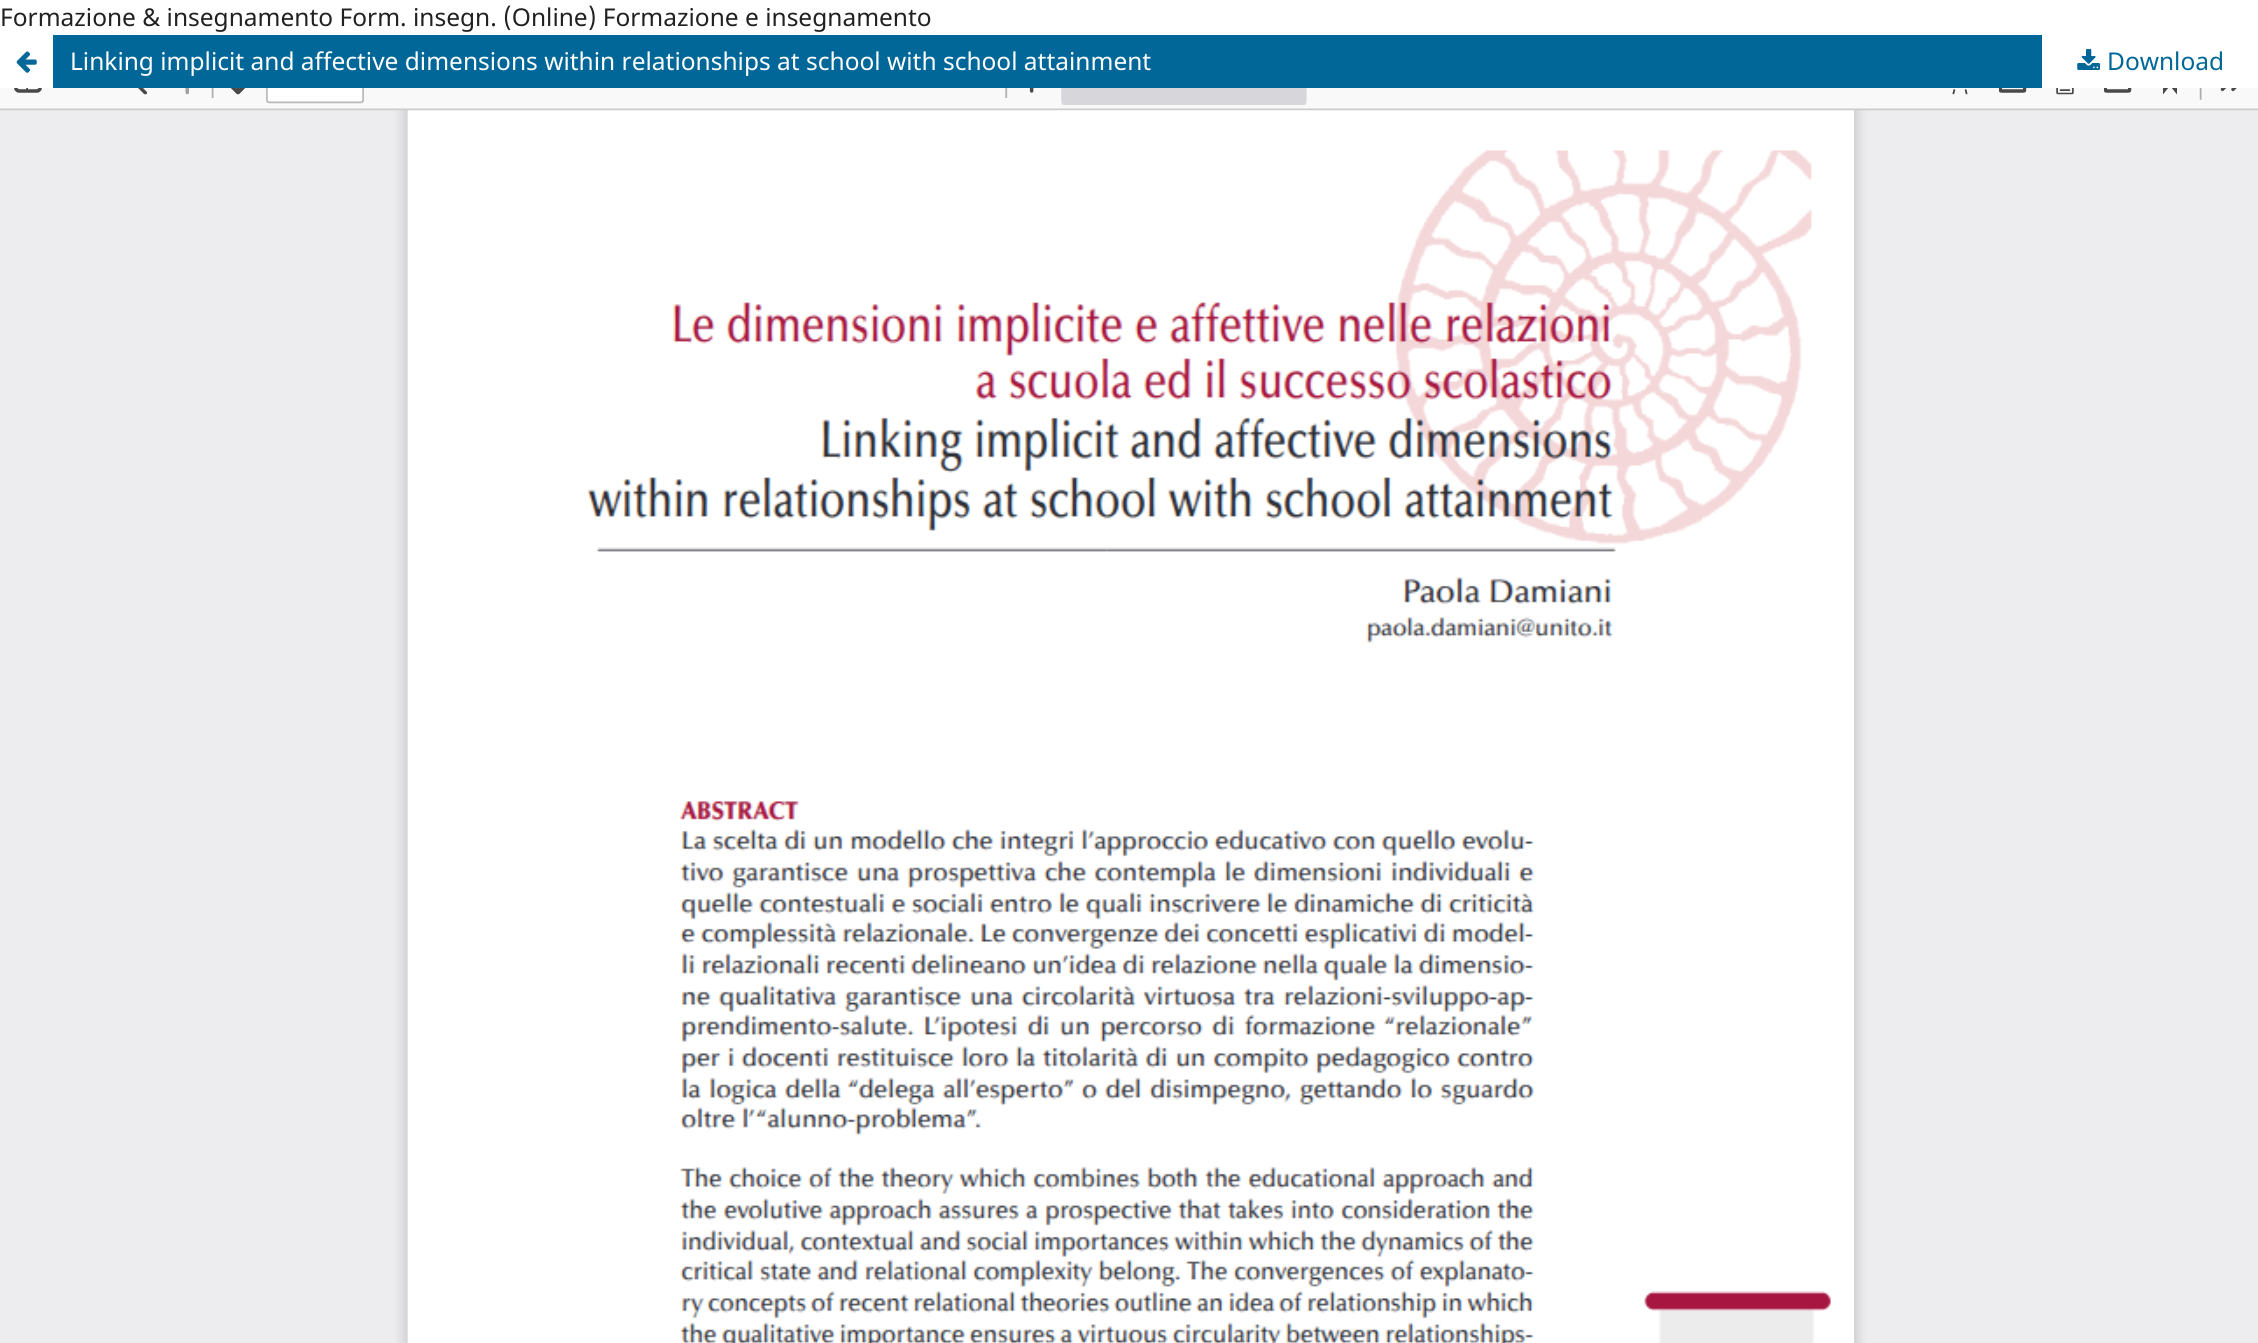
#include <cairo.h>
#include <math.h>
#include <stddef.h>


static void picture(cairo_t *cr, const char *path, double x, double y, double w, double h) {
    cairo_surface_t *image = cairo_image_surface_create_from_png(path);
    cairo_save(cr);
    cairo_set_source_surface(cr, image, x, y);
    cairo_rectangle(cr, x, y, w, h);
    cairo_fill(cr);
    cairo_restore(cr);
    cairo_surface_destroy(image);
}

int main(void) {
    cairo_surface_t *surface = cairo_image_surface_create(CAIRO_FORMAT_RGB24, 2258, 1343);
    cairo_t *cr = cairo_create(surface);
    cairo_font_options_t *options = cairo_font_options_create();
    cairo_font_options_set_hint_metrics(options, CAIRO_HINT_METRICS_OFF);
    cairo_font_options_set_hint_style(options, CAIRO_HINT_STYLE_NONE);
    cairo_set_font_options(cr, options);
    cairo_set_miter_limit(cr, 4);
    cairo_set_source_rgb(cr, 1, 1, 1);
    cairo_paint(cr);
    cairo_select_font_face(cr, "Noto Sans", CAIRO_FONT_SLANT_NORMAL, CAIRO_FONT_WEIGHT_NORMAL);
    cairo_set_font_size(cr, 24.5);
    cairo_set_source_rgb(cr, 0.129, 0.129, 0.129);
    cairo_move_to(cr, 0, 26);
    cairo_show_text(cr, "Formazione & insegnamento Form. insegn. (Online) Formazione e insegnamento");
    cairo_set_source_rgb(cr, 0, 0.404, 0.596);
    cairo_rectangle(cr, 53, 35, 1989, 53);
    cairo_fill(cr);
    picture(cr, "img1.png", 16, 51, 21, 22);
    cairo_set_source_rgb(cr, 1, 1, 1);
    cairo_move_to(cr, 70, 70);
    cairo_show_text(cr, "Linking implicit and affective dimensions within relationships at school with school attainment");
    picture(cr, "img2.png", 2077, 49, 23, 21);
    cairo_set_source_rgb(cr, 0, 0.404, 0.596);
    cairo_move_to(cr, 2107, 70);
    cairo_show_text(cr, "Download");
    picture(cr, "img3.png", 0, 88, 2258, 1255);
    cairo_surface_write_to_png(surface, "page.png");
    cairo_font_options_destroy(options);
    cairo_destroy(cr);
    cairo_surface_destroy(surface);
    return 0;
}
